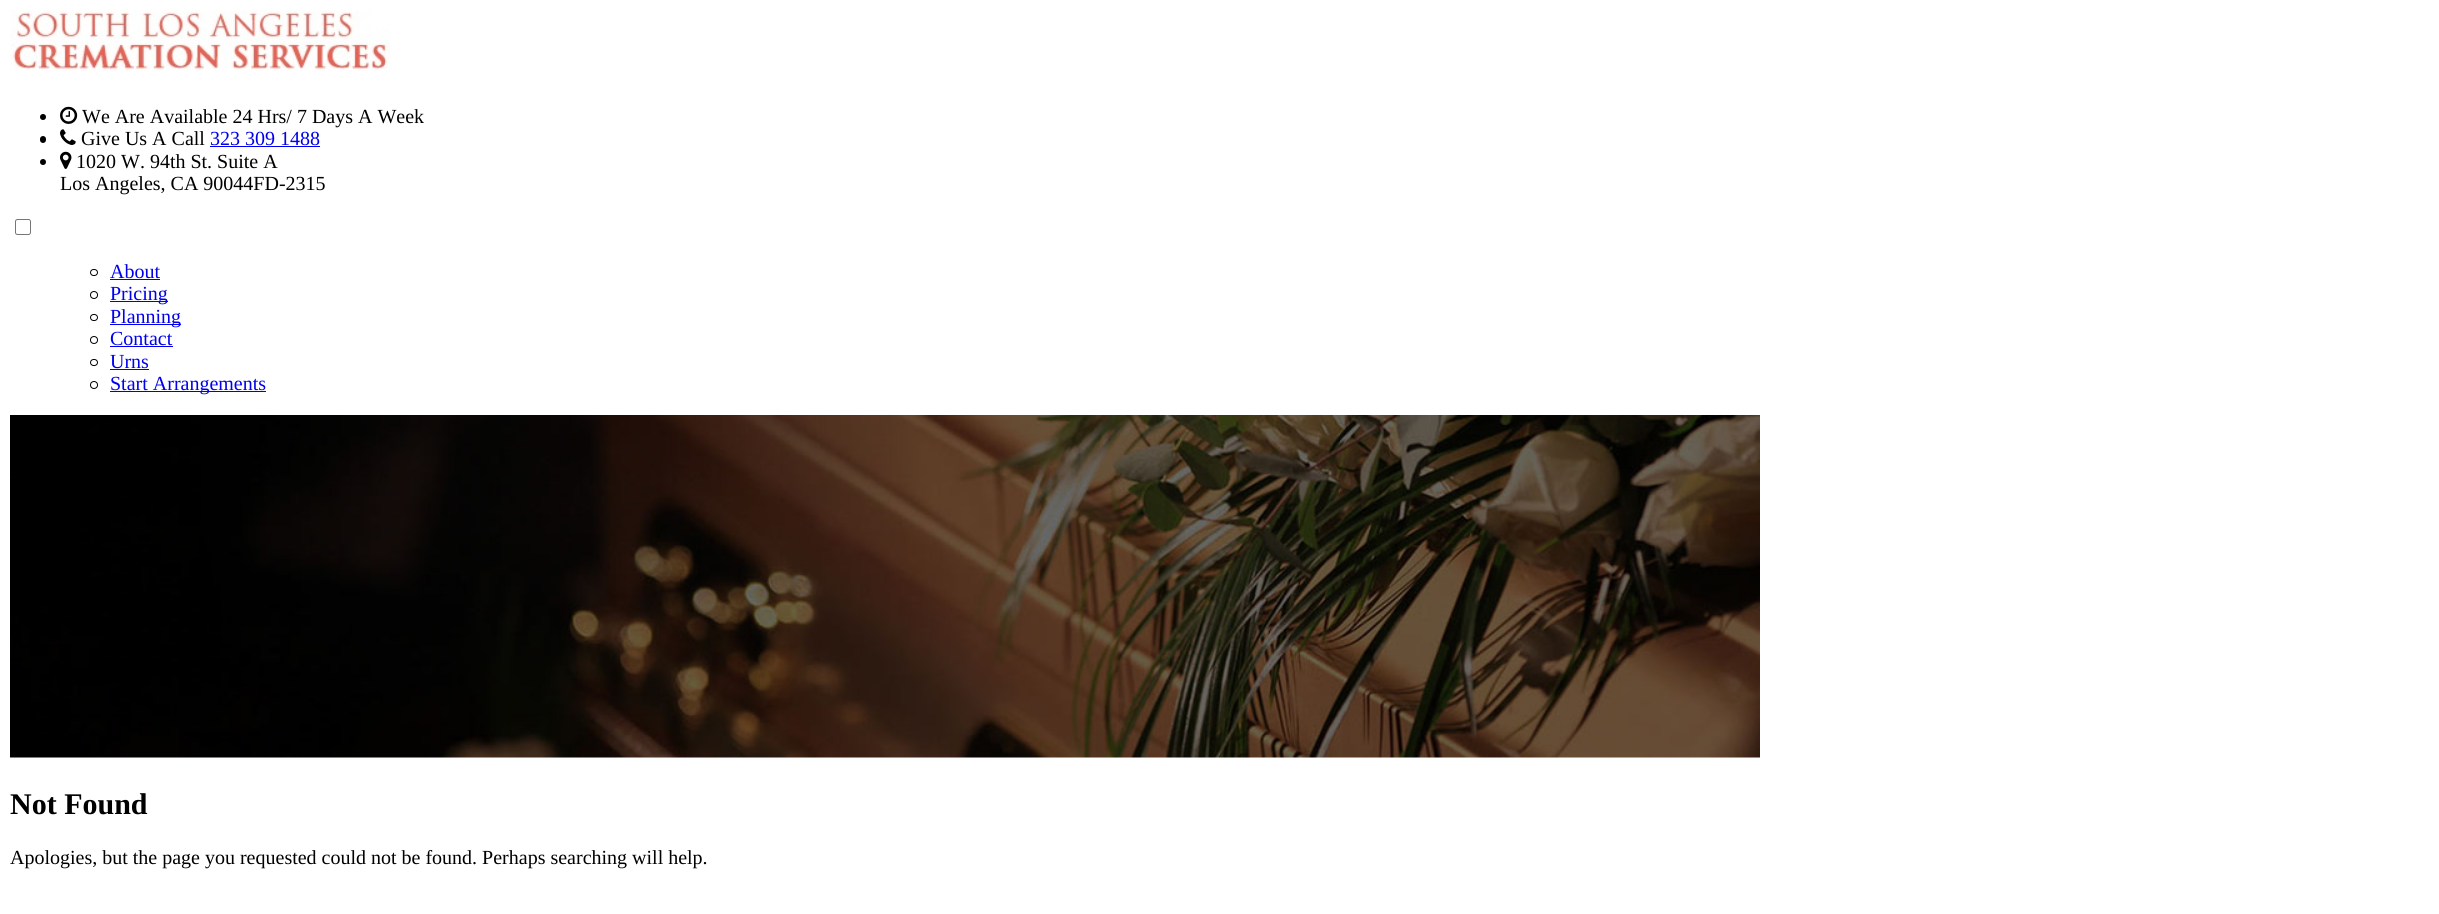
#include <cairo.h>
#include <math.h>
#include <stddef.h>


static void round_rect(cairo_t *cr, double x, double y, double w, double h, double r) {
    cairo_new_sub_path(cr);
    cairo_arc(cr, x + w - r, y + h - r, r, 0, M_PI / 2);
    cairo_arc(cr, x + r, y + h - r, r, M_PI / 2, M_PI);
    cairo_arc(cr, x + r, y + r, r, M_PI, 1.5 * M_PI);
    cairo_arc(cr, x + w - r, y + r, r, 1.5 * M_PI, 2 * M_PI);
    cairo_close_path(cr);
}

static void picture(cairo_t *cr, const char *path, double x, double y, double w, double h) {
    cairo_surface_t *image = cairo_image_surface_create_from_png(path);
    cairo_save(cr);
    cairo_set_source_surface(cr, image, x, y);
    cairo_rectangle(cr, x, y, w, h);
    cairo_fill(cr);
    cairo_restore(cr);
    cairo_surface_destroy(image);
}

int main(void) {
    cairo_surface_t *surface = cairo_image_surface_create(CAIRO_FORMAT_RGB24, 2439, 914);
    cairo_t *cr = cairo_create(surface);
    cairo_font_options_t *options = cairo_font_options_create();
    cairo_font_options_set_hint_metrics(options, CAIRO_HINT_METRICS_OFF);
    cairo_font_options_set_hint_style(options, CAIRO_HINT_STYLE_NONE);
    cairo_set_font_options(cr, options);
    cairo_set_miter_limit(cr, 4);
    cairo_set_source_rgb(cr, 1, 1, 1);
    cairo_paint(cr);
    picture(cr, "img1.png", 10, 10, 380, 61);
    cairo_set_source_rgb(cr, 0, 0, 0);
    cairo_arc(cr, 43, 117, 3, 0, 2 * M_PI);
    cairo_fill(cr);
    picture(cr, "img2.png", 60, 106, 18, 18);
    cairo_select_font_face(cr, "Liberation Serif", CAIRO_FONT_SLANT_NORMAL, CAIRO_FONT_WEIGHT_NORMAL);
    cairo_set_font_size(cr, 20);
    cairo_move_to(cr, 82, 123);
    cairo_show_text(cr, "We Are Available 24 Hrs/ 7 Days A Week");
    round_rect(cr, 40, 136, 6, 7, 3);
    cairo_fill(cr);
    picture(cr, "img3.png", 60, 129, 16, 16);
    cairo_move_to(cr, 81, 145);
    cairo_show_text(cr, "Give Us A Call");
    cairo_set_source_rgb(cr, 0, 0, 0.933);
    cairo_move_to(cr, 210, 145);
    cairo_show_text(cr, "323 309 1488");
    cairo_rectangle(cr, 210, 146, 110, 1);
    cairo_fill(cr);
    cairo_set_source_rgb(cr, 0, 0, 0);
    cairo_arc(cr, 43, 162, 3, 0, 2 * M_PI);
    cairo_fill(cr);
    picture(cr, "img4.png", 60, 151, 12, 18);
    cairo_move_to(cr, 76, 168);
    cairo_show_text(cr, "1020 W. 94th St. Suite A");
    cairo_move_to(cr, 60, 190);
    cairo_show_text(cr, "Los Angeles, CA 90044FD-2315");
    round_rect(cr, 15.5, 219.5, 15, 15, 2);
    cairo_set_source_rgb(cr, 0.463, 0.463, 0.463);
    cairo_set_line_width(cr, 1);
    cairo_stroke(cr);
    round_rect(cr, 90.5, 269.5, 7, 6, 3);
    cairo_set_source_rgb(cr, 0, 0, 0);
    cairo_stroke(cr);
    cairo_set_source_rgb(cr, 0, 0, 0.933);
    cairo_move_to(cr, 110, 278);
    cairo_show_text(cr, "About");
    cairo_rectangle(cr, 110, 279, 50, 1);
    cairo_fill(cr);
    cairo_arc(cr, 94, 295, 3.5, 0, 2 * M_PI);
    cairo_set_source_rgb(cr, 0, 0, 0);
    cairo_stroke(cr);
    cairo_set_source_rgb(cr, 0, 0, 0.933);
    cairo_rectangle(cr, 110, 301, 58, 1);
    cairo_fill(cr);
    cairo_move_to(cr, 110, 300);
    cairo_show_text(cr, "Pricing");
    round_rect(cr, 90.5, 314.5, 7, 6, 3);
    cairo_set_source_rgb(cr, 0, 0, 0);
    cairo_stroke(cr);
    cairo_set_source_rgb(cr, 0, 0, 0.933);
    cairo_rectangle(cr, 110, 324, 71, 1);
    cairo_fill(cr);
    cairo_move_to(cr, 110, 323);
    cairo_show_text(cr, "Planning");
    cairo_new_path(cr);
    cairo_arc(cr, 94, 340, 3.5, 0, 2 * M_PI);
    cairo_set_source_rgb(cr, 0, 0, 0);
    cairo_stroke(cr);
    cairo_set_source_rgb(cr, 0, 0, 0.933);
    cairo_move_to(cr, 110, 345);
    cairo_show_text(cr, "Contact");
    cairo_rectangle(cr, 110, 346, 63, 1);
    cairo_fill(cr);
    round_rect(cr, 90.5, 359.5, 7, 6, 3);
    cairo_set_source_rgb(cr, 0, 0, 0);
    cairo_stroke(cr);
    cairo_set_source_rgb(cr, 0, 0, 0.933);
    cairo_move_to(cr, 110, 368);
    cairo_show_text(cr, "Urns");
    cairo_rectangle(cr, 110, 369, 39, 1);
    cairo_fill(cr);
    cairo_arc(cr, 94, 385, 3.5, 0, 2 * M_PI);
    cairo_set_source_rgb(cr, 0, 0, 0);
    cairo_stroke(cr);
    cairo_set_source_rgb(cr, 0, 0, 0.933);
    cairo_rectangle(cr, 110, 391, 156, 1);
    cairo_fill(cr);
    cairo_move_to(cr, 110, 390);
    cairo_show_text(cr, "Start Arrangements");
    picture(cr, "img5.png", 10, 415, 1750, 343);
    cairo_select_font_face(cr, "Liberation Serif", CAIRO_FONT_SLANT_NORMAL, CAIRO_FONT_WEIGHT_BOLD);
    cairo_set_font_size(cr, 30);
    cairo_set_source_rgb(cr, 0, 0, 0);
    cairo_move_to(cr, 10, 814);
    cairo_show_text(cr, "Not Found");
    cairo_select_font_face(cr, "Liberation Serif", CAIRO_FONT_SLANT_NORMAL, CAIRO_FONT_WEIGHT_NORMAL);
    cairo_set_font_size(cr, 20);
    cairo_move_to(cr, 10, 864);
    cairo_show_text(cr, "Apologies, but the page you requested could not be found. Perhaps searching will help.");
    cairo_surface_write_to_png(surface, "page.png");
    cairo_font_options_destroy(options);
    cairo_destroy(cr);
    cairo_surface_destroy(surface);
    return 0;
}
